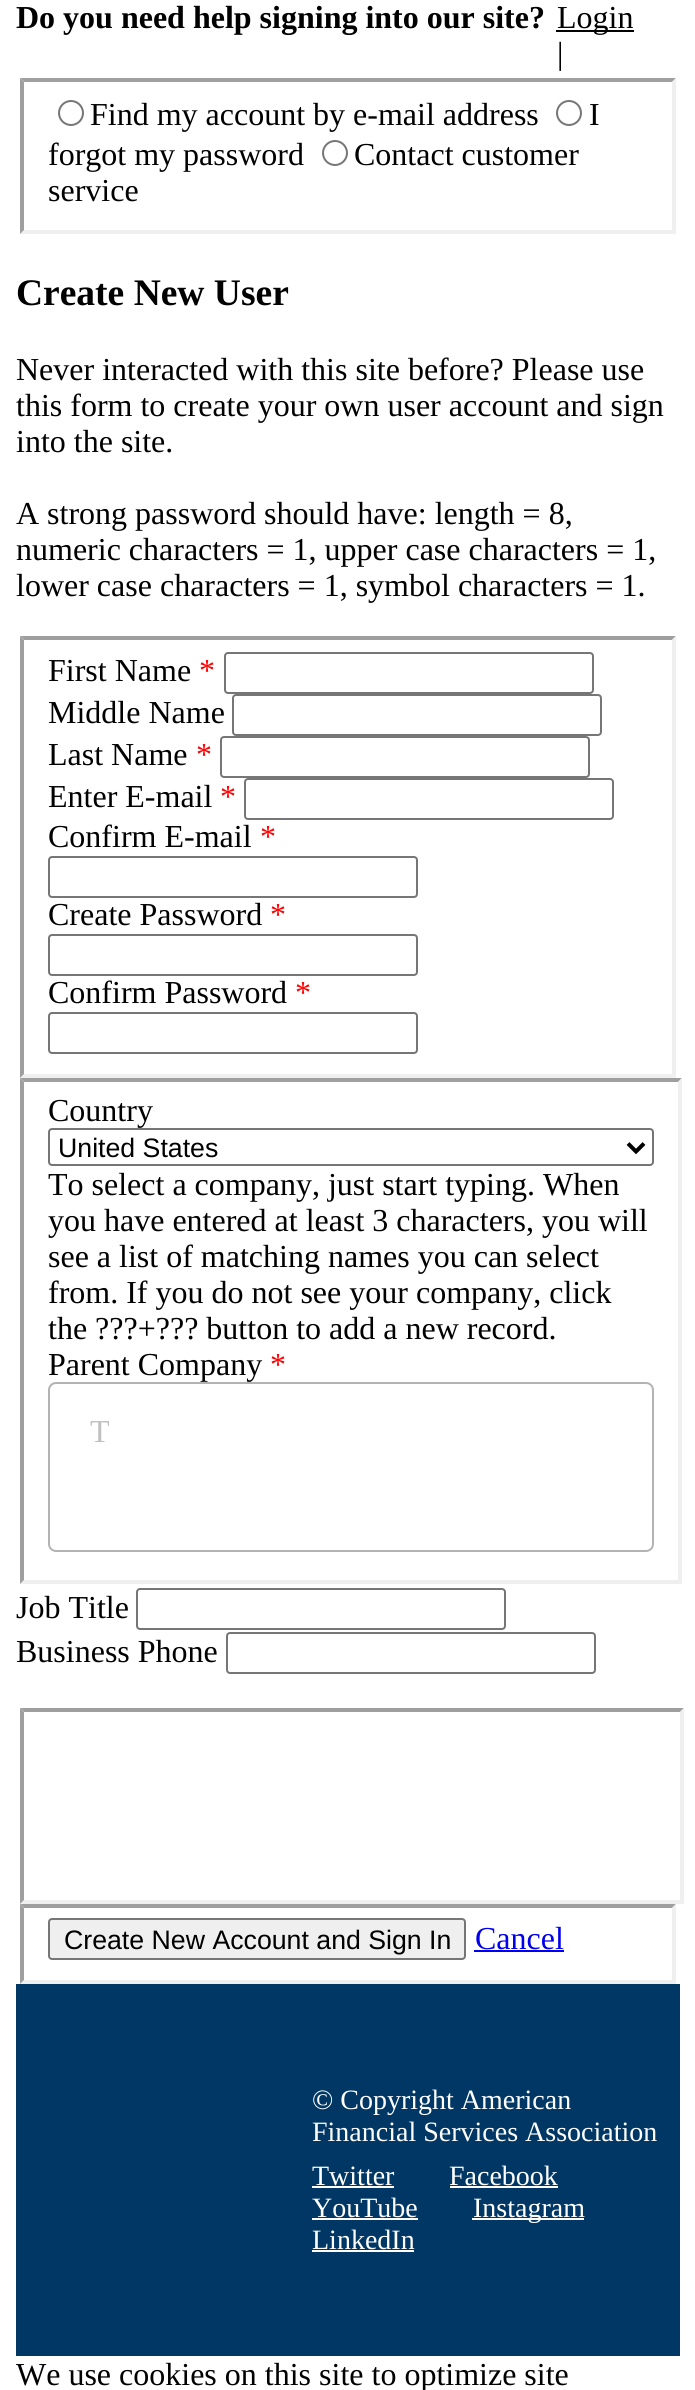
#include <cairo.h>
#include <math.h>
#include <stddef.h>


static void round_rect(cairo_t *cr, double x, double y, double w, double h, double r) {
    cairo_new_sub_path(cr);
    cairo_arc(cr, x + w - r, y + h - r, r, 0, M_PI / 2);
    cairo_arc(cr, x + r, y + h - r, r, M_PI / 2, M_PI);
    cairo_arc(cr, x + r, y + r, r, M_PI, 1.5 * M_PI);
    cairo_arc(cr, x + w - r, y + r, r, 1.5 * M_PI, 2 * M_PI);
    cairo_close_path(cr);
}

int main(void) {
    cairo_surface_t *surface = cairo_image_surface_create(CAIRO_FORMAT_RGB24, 695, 2390);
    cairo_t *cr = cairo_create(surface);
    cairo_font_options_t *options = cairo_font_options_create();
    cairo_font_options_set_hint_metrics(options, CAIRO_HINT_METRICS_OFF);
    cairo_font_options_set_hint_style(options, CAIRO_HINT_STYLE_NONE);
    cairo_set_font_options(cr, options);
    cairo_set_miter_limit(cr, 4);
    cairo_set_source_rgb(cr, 1, 1, 1);
    cairo_paint(cr);
    cairo_select_font_face(cr, "Liberation Serif", CAIRO_FONT_SLANT_NORMAL, CAIRO_FONT_WEIGHT_BOLD);
    cairo_set_font_size(cr, 32);
    cairo_set_source_rgb(cr, 0, 0, 0);
    cairo_move_to(cr, 16, 28);
    cairo_show_text(cr, "Do you need help signing into our site?");
    cairo_set_source_rgb(cr, 0.624, 0.624, 0.624);
    cairo_new_path(cr);
    cairo_move_to(cr, 20, 78);
    cairo_line_to(cr, 676, 78);
    cairo_line_to(cr, 672, 82);
    cairo_line_to(cr, 24, 82);
    cairo_close_path(cr);
    cairo_fill(cr);
    cairo_set_source_rgb(cr, 0.937, 0.937, 0.937);
    cairo_new_path(cr);
    cairo_move_to(cr, 676, 78);
    cairo_line_to(cr, 676, 234);
    cairo_line_to(cr, 672, 230);
    cairo_line_to(cr, 672, 82);
    cairo_close_path(cr);
    cairo_fill(cr);
    cairo_new_path(cr);
    cairo_move_to(cr, 676, 234);
    cairo_line_to(cr, 20, 234);
    cairo_line_to(cr, 24, 230);
    cairo_line_to(cr, 672, 230);
    cairo_close_path(cr);
    cairo_fill(cr);
    cairo_set_source_rgb(cr, 0.624, 0.624, 0.624);
    cairo_new_path(cr);
    cairo_move_to(cr, 20, 234);
    cairo_line_to(cr, 20, 78);
    cairo_line_to(cr, 24, 82);
    cairo_line_to(cr, 24, 230);
    cairo_close_path(cr);
    cairo_fill(cr);
    cairo_arc(cr, 71, 113, 12, 0, 2 * M_PI);
    cairo_set_source_rgb(cr, 0.463, 0.463, 0.463);
    cairo_stroke(cr);
    cairo_select_font_face(cr, "Liberation Serif", CAIRO_FONT_SLANT_NORMAL, CAIRO_FONT_WEIGHT_NORMAL);
    cairo_set_source_rgb(cr, 0, 0, 0);
    cairo_move_to(cr, 90, 125);
    cairo_show_text(cr, "Find my account by e-mail address");
    cairo_new_path(cr);
    cairo_arc(cr, 569, 113, 12, 0, 2 * M_PI);
    cairo_set_source_rgb(cr, 0.463, 0.463, 0.463);
    cairo_stroke(cr);
    cairo_set_source_rgb(cr, 0, 0, 0);
    cairo_move_to(cr, 589, 125);
    cairo_show_text(cr, "I");
    cairo_move_to(cr, 48, 165);
    cairo_show_text(cr, "forgot my password");
    cairo_new_path(cr);
    cairo_arc(cr, 335, 153, 12, 0, 2 * M_PI);
    cairo_set_source_rgb(cr, 0.463, 0.463, 0.463);
    cairo_stroke(cr);
    cairo_set_source_rgb(cr, 0, 0, 0);
    cairo_move_to(cr, 354, 165);
    cairo_show_text(cr, "Contact customer");
    cairo_move_to(cr, 48, 201);
    cairo_show_text(cr, "service");
    cairo_select_font_face(cr, "Liberation Serif", CAIRO_FONT_SLANT_NORMAL, CAIRO_FONT_WEIGHT_BOLD);
    cairo_set_font_size(cr, 37.5);
    cairo_move_to(cr, 16, 305);
    cairo_show_text(cr, "Create New User");
    cairo_select_font_face(cr, "Liberation Serif", CAIRO_FONT_SLANT_NORMAL, CAIRO_FONT_WEIGHT_NORMAL);
    cairo_set_font_size(cr, 32);
    cairo_move_to(cr, 16, 380);
    cairo_show_text(cr, "Never interacted with this site before? Please use");
    cairo_move_to(cr, 16, 416);
    cairo_show_text(cr, "this form to create your own user account and sign");
    cairo_move_to(cr, 16, 452);
    cairo_show_text(cr, "into the site.");
    cairo_move_to(cr, 16, 524);
    cairo_show_text(cr, "A strong password should have: length = 8,");
    cairo_move_to(cr, 16, 560);
    cairo_show_text(cr, "numeric characters = 1, upper case characters = 1,");
    cairo_move_to(cr, 16, 596);
    cairo_show_text(cr, "lower case characters = 1, symbol characters = 1.");
    cairo_set_source_rgb(cr, 0.624, 0.624, 0.624);
    cairo_new_path(cr);
    cairo_move_to(cr, 20, 636);
    cairo_line_to(cr, 676, 636);
    cairo_line_to(cr, 672, 640);
    cairo_line_to(cr, 24, 640);
    cairo_close_path(cr);
    cairo_fill(cr);
    cairo_set_source_rgb(cr, 0.937, 0.937, 0.937);
    cairo_new_path(cr);
    cairo_move_to(cr, 676, 636);
    cairo_line_to(cr, 676, 1078);
    cairo_line_to(cr, 672, 1074);
    cairo_line_to(cr, 672, 640);
    cairo_close_path(cr);
    cairo_fill(cr);
    cairo_new_path(cr);
    cairo_move_to(cr, 676, 1078);
    cairo_line_to(cr, 20, 1078);
    cairo_line_to(cr, 24, 1074);
    cairo_line_to(cr, 672, 1074);
    cairo_close_path(cr);
    cairo_fill(cr);
    cairo_set_source_rgb(cr, 0.624, 0.624, 0.624);
    cairo_new_path(cr);
    cairo_move_to(cr, 20, 1078);
    cairo_line_to(cr, 20, 636);
    cairo_line_to(cr, 24, 640);
    cairo_line_to(cr, 24, 1074);
    cairo_close_path(cr);
    cairo_fill(cr);
    cairo_set_source_rgb(cr, 0, 0, 0);
    cairo_move_to(cr, 48, 681);
    cairo_show_text(cr, "First Name");
    cairo_set_source_rgb(cr, 1, 0, 0);
    cairo_move_to(cr, 199, 681);
    cairo_show_text(cr, "*");
    round_rect(cr, 225, 653, 368, 40, 3);
    cairo_set_source_rgb(cr, 0.463, 0.463, 0.463);
    cairo_stroke(cr);
    cairo_set_source_rgb(cr, 0, 0, 0);
    cairo_move_to(cr, 48, 723);
    cairo_show_text(cr, "Middle Name");
    round_rect(cr, 233, 695, 368, 40, 3);
    cairo_set_source_rgb(cr, 0.463, 0.463, 0.463);
    cairo_stroke(cr);
    cairo_set_source_rgb(cr, 0, 0, 0);
    cairo_move_to(cr, 48, 765);
    cairo_show_text(cr, "Last Name");
    cairo_set_source_rgb(cr, 1, 0, 0);
    cairo_move_to(cr, 196, 765);
    cairo_show_text(cr, "*");
    round_rect(cr, 221, 737, 368, 40, 3);
    cairo_set_source_rgb(cr, 0.463, 0.463, 0.463);
    cairo_stroke(cr);
    cairo_set_source_rgb(cr, 0, 0, 0);
    cairo_move_to(cr, 48, 807);
    cairo_show_text(cr, "Enter E-mail");
    cairo_set_source_rgb(cr, 1, 0, 0);
    cairo_move_to(cr, 220, 807);
    cairo_show_text(cr, "*");
    round_rect(cr, 245, 779, 368, 40, 3);
    cairo_set_source_rgb(cr, 0.463, 0.463, 0.463);
    cairo_stroke(cr);
    cairo_set_source_rgb(cr, 0, 0, 0);
    cairo_move_to(cr, 48, 847);
    cairo_show_text(cr, "Confirm E-mail");
    cairo_set_source_rgb(cr, 1, 0, 0);
    cairo_move_to(cr, 260, 847);
    cairo_show_text(cr, "*");
    round_rect(cr, 49, 857, 368, 40, 3);
    cairo_set_source_rgb(cr, 0.463, 0.463, 0.463);
    cairo_stroke(cr);
    cairo_set_source_rgb(cr, 0, 0, 0);
    cairo_move_to(cr, 48, 925);
    cairo_show_text(cr, "Create Password");
    cairo_set_source_rgb(cr, 1, 0, 0);
    cairo_move_to(cr, 270, 925);
    cairo_show_text(cr, "*");
    round_rect(cr, 49, 935, 368, 40, 3);
    cairo_set_source_rgb(cr, 0.463, 0.463, 0.463);
    cairo_stroke(cr);
    cairo_set_source_rgb(cr, 0, 0, 0);
    cairo_move_to(cr, 48, 1003);
    cairo_show_text(cr, "Confirm Password");
    cairo_set_source_rgb(cr, 1, 0, 0);
    cairo_move_to(cr, 295, 1003);
    cairo_show_text(cr, "*");
    round_rect(cr, 49, 1013, 368, 40, 3);
    cairo_set_source_rgb(cr, 0.463, 0.463, 0.463);
    cairo_stroke(cr);
    cairo_set_source_rgb(cr, 0.624, 0.624, 0.624);
    cairo_new_path(cr);
    cairo_move_to(cr, 20, 1078);
    cairo_line_to(cr, 682, 1078);
    cairo_line_to(cr, 678, 1082);
    cairo_line_to(cr, 24, 1082);
    cairo_close_path(cr);
    cairo_fill(cr);
    cairo_set_source_rgb(cr, 0.937, 0.937, 0.937);
    cairo_new_path(cr);
    cairo_move_to(cr, 682, 1078);
    cairo_line_to(cr, 682, 1584);
    cairo_line_to(cr, 678, 1580);
    cairo_line_to(cr, 678, 1082);
    cairo_close_path(cr);
    cairo_fill(cr);
    cairo_new_path(cr);
    cairo_move_to(cr, 682, 1584);
    cairo_line_to(cr, 20, 1584);
    cairo_line_to(cr, 24, 1580);
    cairo_line_to(cr, 678, 1580);
    cairo_close_path(cr);
    cairo_fill(cr);
    cairo_set_source_rgb(cr, 0.624, 0.624, 0.624);
    cairo_new_path(cr);
    cairo_move_to(cr, 20, 1584);
    cairo_line_to(cr, 20, 1078);
    cairo_line_to(cr, 24, 1082);
    cairo_line_to(cr, 24, 1580);
    cairo_close_path(cr);
    cairo_fill(cr);
    cairo_set_source_rgb(cr, 0, 0, 0);
    cairo_move_to(cr, 48, 1121);
    cairo_show_text(cr, "Country");
    round_rect(cr, 49, 1129, 604, 36, 3);
    cairo_set_source_rgb(cr, 0.463, 0.463, 0.463);
    cairo_stroke(cr);
    cairo_new_path(cr);
    cairo_move_to(cr, 628, 1143.5);
    cairo_line_to(cr, 636, 1151.5);
    cairo_line_to(cr, 644, 1143.5);
    cairo_set_source_rgb(cr, 0, 0, 0);
    cairo_set_line_width(cr, 4);
    cairo_stroke(cr);
    cairo_select_font_face(cr, "Liberation Sans", CAIRO_FONT_SLANT_NORMAL, CAIRO_FONT_WEIGHT_NORMAL);
    cairo_set_font_size(cr, 26.7);
    cairo_move_to(cr, 58, 1157);
    cairo_show_text(cr, "United States");
    cairo_select_font_face(cr, "Liberation Serif", CAIRO_FONT_SLANT_NORMAL, CAIRO_FONT_WEIGHT_NORMAL);
    cairo_set_font_size(cr, 32);
    cairo_move_to(cr, 48, 1195);
    cairo_show_text(cr, "To select a company, just start typing. When");
    cairo_move_to(cr, 48, 1231);
    cairo_show_text(cr, "you have entered at least 3 characters, you will");
    cairo_move_to(cr, 48, 1267);
    cairo_show_text(cr, "see a list of matching names you can select");
    cairo_move_to(cr, 48, 1303);
    cairo_show_text(cr, "from. If you do not see your company, click");
    cairo_move_to(cr, 48, 1339);
    cairo_show_text(cr, "the ?\077?+?\077? button to add a new record.");
    cairo_move_to(cr, 48, 1375);
    cairo_show_text(cr, "Parent Company");
    cairo_set_source_rgb(cr, 1, 0, 0);
    cairo_move_to(cr, 270, 1375);
    cairo_show_text(cr, "*");
    round_rect(cr, 49, 1383, 604, 168, 7);
    cairo_set_source_rgb(cr, 0.702, 0.702, 0.702);
    cairo_set_line_width(cr, 2);
    cairo_stroke(cr);
    cairo_set_source_rgb(cr, 0.753, 0.753, 0.753);
    cairo_move_to(cr, 90, 1442);
    cairo_show_text(cr, "T");
    cairo_set_source_rgb(cr, 0, 0, 0);
    cairo_move_to(cr, 16, 1618);
    cairo_show_text(cr, "Job Title");
    round_rect(cr, 137, 1589, 368, 40, 3);
    cairo_set_source_rgb(cr, 0.463, 0.463, 0.463);
    cairo_stroke(cr);
    cairo_set_source_rgb(cr, 0, 0, 0);
    cairo_move_to(cr, 16, 1662);
    cairo_show_text(cr, "Business Phone");
    round_rect(cr, 227, 1633, 368, 40, 3);
    cairo_set_source_rgb(cr, 0.463, 0.463, 0.463);
    cairo_stroke(cr);
    cairo_set_source_rgb(cr, 0.624, 0.624, 0.624);
    cairo_new_path(cr);
    cairo_move_to(cr, 20, 1708);
    cairo_line_to(cr, 684, 1708);
    cairo_line_to(cr, 680, 1712);
    cairo_line_to(cr, 24, 1712);
    cairo_close_path(cr);
    cairo_fill(cr);
    cairo_set_source_rgb(cr, 0.937, 0.937, 0.937);
    cairo_new_path(cr);
    cairo_move_to(cr, 684, 1708);
    cairo_line_to(cr, 684, 1904);
    cairo_line_to(cr, 680, 1900);
    cairo_line_to(cr, 680, 1712);
    cairo_close_path(cr);
    cairo_fill(cr);
    cairo_new_path(cr);
    cairo_move_to(cr, 684, 1904);
    cairo_line_to(cr, 20, 1904);
    cairo_line_to(cr, 24, 1900);
    cairo_line_to(cr, 680, 1900);
    cairo_close_path(cr);
    cairo_fill(cr);
    cairo_set_source_rgb(cr, 0.624, 0.624, 0.624);
    cairo_new_path(cr);
    cairo_move_to(cr, 20, 1904);
    cairo_line_to(cr, 20, 1708);
    cairo_line_to(cr, 24, 1712);
    cairo_line_to(cr, 24, 1900);
    cairo_close_path(cr);
    cairo_fill(cr);
    cairo_new_path(cr);
    cairo_move_to(cr, 20, 1904);
    cairo_line_to(cr, 676, 1904);
    cairo_line_to(cr, 672, 1908);
    cairo_line_to(cr, 24, 1908);
    cairo_close_path(cr);
    cairo_fill(cr);
    cairo_set_source_rgb(cr, 0.937, 0.937, 0.937);
    cairo_new_path(cr);
    cairo_move_to(cr, 676, 1904);
    cairo_line_to(cr, 676, 1984);
    cairo_line_to(cr, 672, 1980);
    cairo_line_to(cr, 672, 1908);
    cairo_close_path(cr);
    cairo_fill(cr);
    cairo_new_path(cr);
    cairo_move_to(cr, 676, 1984);
    cairo_line_to(cr, 20, 1984);
    cairo_line_to(cr, 24, 1980);
    cairo_line_to(cr, 672, 1980);
    cairo_close_path(cr);
    cairo_fill(cr);
    cairo_set_source_rgb(cr, 0.624, 0.624, 0.624);
    cairo_new_path(cr);
    cairo_move_to(cr, 20, 1984);
    cairo_line_to(cr, 20, 1904);
    cairo_line_to(cr, 24, 1908);
    cairo_line_to(cr, 24, 1980);
    cairo_close_path(cr);
    cairo_fill(cr);
    cairo_set_source_rgb(cr, 0.937, 0.937, 0.937);
    round_rect(cr, 49, 1919, 416, 40, 3);
    cairo_fill_preserve(cr);
    cairo_set_source_rgb(cr, 0.463, 0.463, 0.463);
    cairo_stroke(cr);
    cairo_select_font_face(cr, "Liberation Sans", CAIRO_FONT_SLANT_NORMAL, CAIRO_FONT_WEIGHT_NORMAL);
    cairo_set_font_size(cr, 26.7);
    cairo_set_source_rgb(cr, 0, 0, 0);
    cairo_move_to(cr, 64, 1949);
    cairo_show_text(cr, "Create New Account and Sign In");
    cairo_select_font_face(cr, "Liberation Serif", CAIRO_FONT_SLANT_NORMAL, CAIRO_FONT_WEIGHT_NORMAL);
    cairo_set_font_size(cr, 32);
    cairo_set_source_rgb(cr, 0, 0, 0.933);
    cairo_move_to(cr, 475, 1949);
    cairo_show_text(cr, "Cancel");
    cairo_rectangle(cr, 474, 1950, 90, 2);
    cairo_fill(cr);
    cairo_set_source_rgb(cr, 0, 0, 0);
    cairo_rectangle(cr, 556, 30, 78, 2);
    cairo_fill(cr);
    cairo_move_to(cr, 557, 28);
    cairo_show_text(cr, "Login");
    cairo_move_to(cr, 557, 64);
    cairo_show_text(cr, "|");
    cairo_set_source_rgb(cr, 0, 0.216, 0.392);
    cairo_rectangle(cr, 16, 1984, 664, 372);
    cairo_fill(cr);
    cairo_set_font_size(cr, 28);
    cairo_set_source_rgb(cr, 1, 1, 1);
    cairo_move_to(cr, 312, 2109);
    cairo_show_text(cr, "© Copyright American");
    cairo_move_to(cr, 312, 2141);
    cairo_show_text(cr, "Financial Services Association");
    cairo_move_to(cr, 312, 2185);
    cairo_show_text(cr, "Twitter");
    cairo_rectangle(cr, 312, 2186, 82, 2);
    cairo_fill(cr);
    cairo_move_to(cr, 449, 2185);
    cairo_show_text(cr, "Facebook");
    cairo_rectangle(cr, 450, 2186, 108, 2);
    cairo_fill(cr);
    cairo_move_to(cr, 312, 2217);
    cairo_show_text(cr, "YouTube");
    cairo_rectangle(cr, 312, 2218, 106, 2);
    cairo_fill(cr);
    cairo_rectangle(cr, 472, 2218, 112, 2);
    cairo_fill(cr);
    cairo_move_to(cr, 473, 2217);
    cairo_show_text(cr, "Instagram");
    cairo_move_to(cr, 312, 2249);
    cairo_show_text(cr, "LinkedIn");
    cairo_rectangle(cr, 312, 2250, 102, 2);
    cairo_fill(cr);
    cairo_set_font_size(cr, 32);
    cairo_set_source_rgb(cr, 0, 0, 0);
    cairo_move_to(cr, 16, 2385);
    cairo_show_text(cr, "We use cookies on this site to optimize site");
    cairo_surface_write_to_png(surface, "page.png");
    cairo_font_options_destroy(options);
    cairo_destroy(cr);
    cairo_surface_destroy(surface);
    return 0;
}
